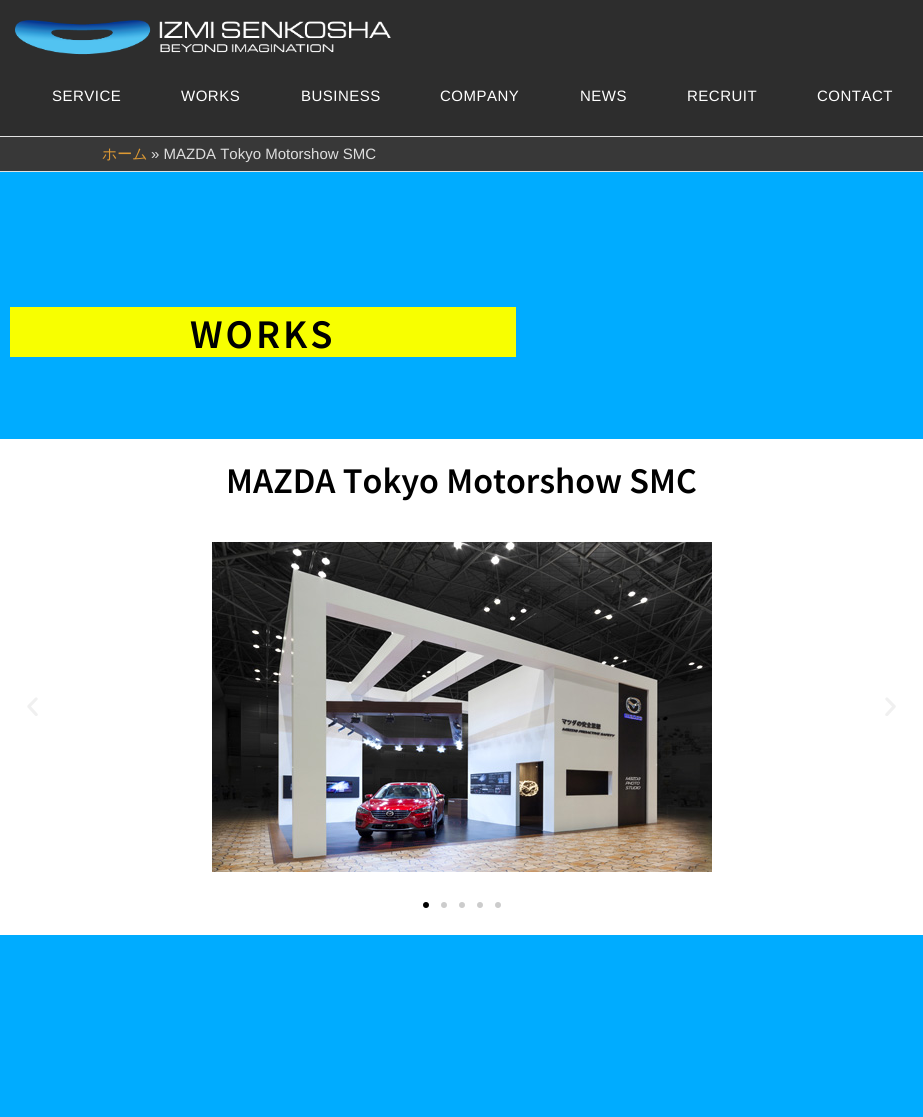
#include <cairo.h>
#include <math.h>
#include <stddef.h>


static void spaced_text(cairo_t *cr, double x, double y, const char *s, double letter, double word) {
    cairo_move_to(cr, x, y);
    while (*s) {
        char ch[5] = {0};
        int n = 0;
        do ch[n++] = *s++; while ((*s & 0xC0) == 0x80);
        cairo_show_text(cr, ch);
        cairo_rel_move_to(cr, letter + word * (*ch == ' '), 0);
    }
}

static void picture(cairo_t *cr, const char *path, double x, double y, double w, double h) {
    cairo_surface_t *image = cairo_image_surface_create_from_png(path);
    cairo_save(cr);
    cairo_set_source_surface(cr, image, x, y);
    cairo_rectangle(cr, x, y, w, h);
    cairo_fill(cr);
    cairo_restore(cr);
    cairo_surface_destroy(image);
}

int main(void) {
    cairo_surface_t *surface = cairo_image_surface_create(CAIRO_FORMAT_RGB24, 923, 1117);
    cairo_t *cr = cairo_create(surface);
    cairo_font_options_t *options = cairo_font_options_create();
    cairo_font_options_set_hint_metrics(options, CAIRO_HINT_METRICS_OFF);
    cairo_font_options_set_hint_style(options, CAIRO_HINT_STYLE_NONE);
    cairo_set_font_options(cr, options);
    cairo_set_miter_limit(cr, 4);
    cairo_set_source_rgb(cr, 0.22, 0.22, 0.22);
    cairo_paint(cr);
    cairo_set_source_rgb(cr, 0.176, 0.176, 0.176);
    cairo_rectangle(cr, 0, 0, 923, 136);
    cairo_fill(cr);
    cairo_set_source_rgb(cr, 0.886, 0.886, 0.886);
    cairo_rectangle(cr, 0, 136, 923, 1);
    cairo_fill(cr);
    picture(cr, "img1.png", 15, 20, 376, 35);
    cairo_select_font_face(cr, "Liberation Sans", CAIRO_FONT_SLANT_NORMAL, CAIRO_FONT_WEIGHT_NORMAL);
    cairo_set_font_size(cr, 15);
    cairo_set_source_rgb(cr, 1, 1, 1);
    spaced_text(cr, 52, 101, "SERVICE", 0.5, 0);
    spaced_text(cr, 181, 101, "WORKS", 0.5, 0);
    spaced_text(cr, 301, 101, "BUSINESS", 0.5, 0);
    spaced_text(cr, 440, 101, "COMPANY", 0.5, 0);
    spaced_text(cr, 580, 101, "NEWS", 0.5, 0);
    spaced_text(cr, 687, 101, "RECRUIT", 0.5, 0);
    spaced_text(cr, 817, 101, "CONTACT", 0.5, 0);
    cairo_set_source_rgb(cr, 0.886, 0.886, 0.886);
    cairo_rectangle(cr, 0, 171, 923, 1);
    cairo_fill(cr);
    cairo_select_font_face(cr, "WenQuanYi Zen Hei Medium", CAIRO_FONT_SLANT_NORMAL, CAIRO_FONT_WEIGHT_NORMAL);
    cairo_set_source_rgb(cr, 0.867, 0.6, 0.2);
    cairo_move_to(cr, 102, 159);
    cairo_show_text(cr, "ホーム");
    cairo_select_font_face(cr, "Liberation Sans", CAIRO_FONT_SLANT_NORMAL, CAIRO_FONT_WEIGHT_NORMAL);
    cairo_set_source_rgb(cr, 0.867, 0.867, 0.867);
    cairo_move_to(cr, 151, 159);
    cairo_show_text(cr, "» MAZDA Tokyo Motorshow SMC");
    cairo_set_source_rgb(cr, 0, 0.675, 1);
    cairo_rectangle(cr, 0, 172, 923, 945);
    cairo_fill(cr);
    cairo_set_source_rgb(cr, 0.969, 1, 0);
    cairo_rectangle(cr, 10, 307, 506, 50);
    cairo_fill(cr);
    cairo_select_font_face(cr, "Noto Sans JP SemiBold", CAIRO_FONT_SLANT_NORMAL, CAIRO_FONT_WEIGHT_NORMAL);
    cairo_set_font_size(cr, 36);
    cairo_set_source_rgb(cr, 0, 0, 0);
    spaced_text(cr, 190, 348, "WORKS", 3, 0);
    cairo_set_source_rgb(cr, 1, 1, 1);
    cairo_rectangle(cr, 0, 439, 923, 496);
    cairo_fill(cr);
    cairo_set_font_size(cr, 32);
    cairo_set_source_rgb(cr, 0, 0, 0);
    cairo_move_to(cr, 226, 493);
    cairo_show_text(cr, "MAZDA Tokyo Motorshow SMC");
    picture(cr, "img2.png", 27, 697, 11, 19);
    picture(cr, "img3.png", 212, 542, 500, 330);
    picture(cr, "img4.png", 885, 697, 11, 19);
    cairo_arc(cr, 426, 905, 3, 0, 2 * M_PI);
    cairo_fill(cr);
    cairo_set_source_rgb(cr, 0.8, 0.8, 0.8);
    cairo_arc(cr, 444, 905, 3, 0, 2 * M_PI);
    cairo_fill(cr);
    cairo_arc(cr, 462, 905, 3, 0, 2 * M_PI);
    cairo_fill(cr);
    cairo_arc(cr, 480, 905, 3, 0, 2 * M_PI);
    cairo_fill(cr);
    cairo_arc(cr, 498, 905, 3, 0, 2 * M_PI);
    cairo_fill(cr);
    cairo_surface_write_to_png(surface, "page.png");
    cairo_font_options_destroy(options);
    cairo_destroy(cr);
    cairo_surface_destroy(surface);
    return 0;
}
